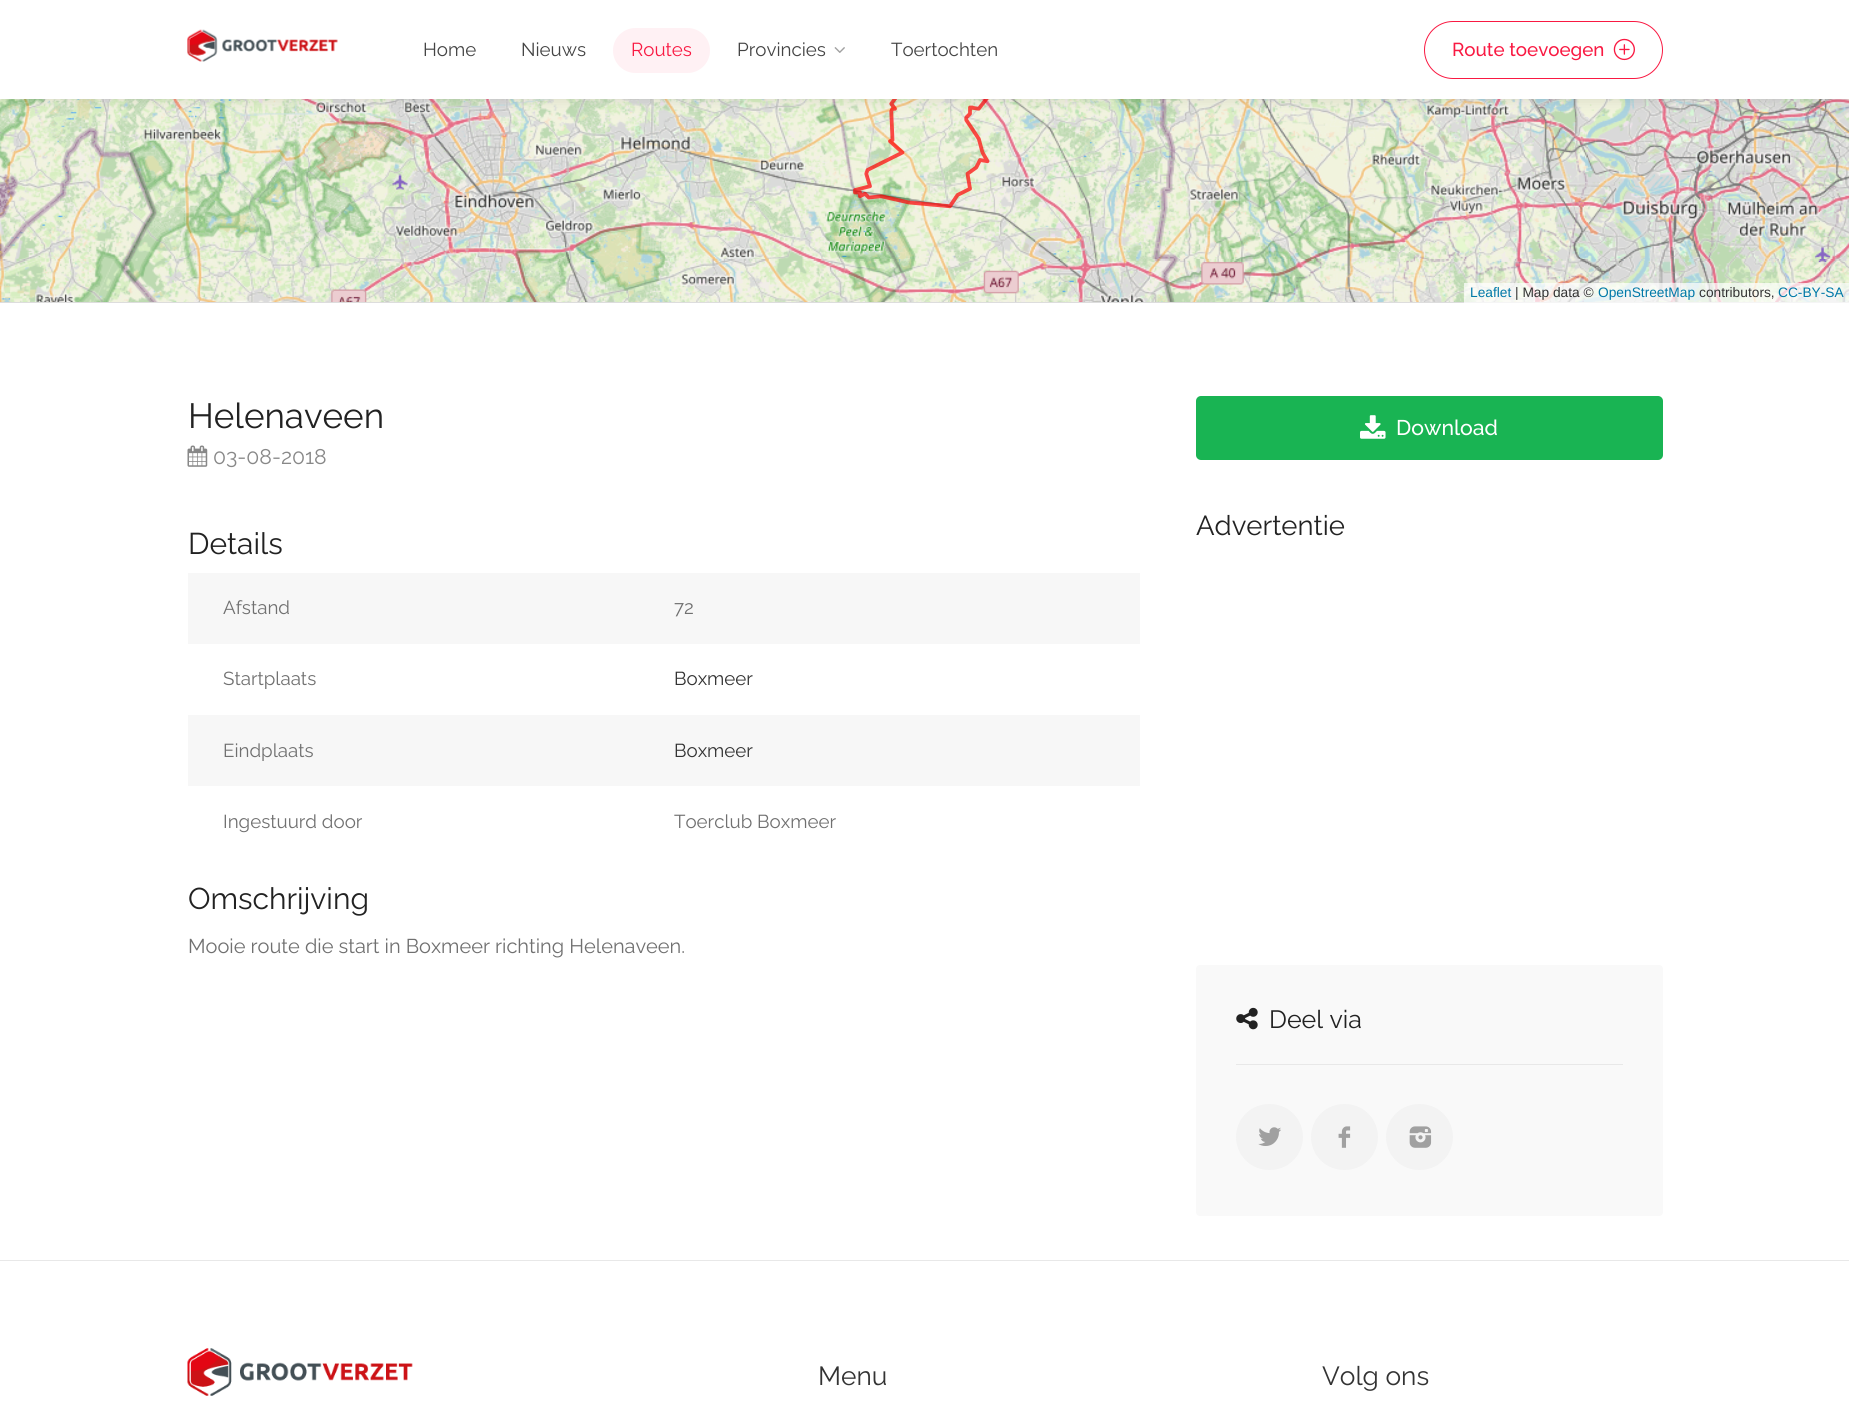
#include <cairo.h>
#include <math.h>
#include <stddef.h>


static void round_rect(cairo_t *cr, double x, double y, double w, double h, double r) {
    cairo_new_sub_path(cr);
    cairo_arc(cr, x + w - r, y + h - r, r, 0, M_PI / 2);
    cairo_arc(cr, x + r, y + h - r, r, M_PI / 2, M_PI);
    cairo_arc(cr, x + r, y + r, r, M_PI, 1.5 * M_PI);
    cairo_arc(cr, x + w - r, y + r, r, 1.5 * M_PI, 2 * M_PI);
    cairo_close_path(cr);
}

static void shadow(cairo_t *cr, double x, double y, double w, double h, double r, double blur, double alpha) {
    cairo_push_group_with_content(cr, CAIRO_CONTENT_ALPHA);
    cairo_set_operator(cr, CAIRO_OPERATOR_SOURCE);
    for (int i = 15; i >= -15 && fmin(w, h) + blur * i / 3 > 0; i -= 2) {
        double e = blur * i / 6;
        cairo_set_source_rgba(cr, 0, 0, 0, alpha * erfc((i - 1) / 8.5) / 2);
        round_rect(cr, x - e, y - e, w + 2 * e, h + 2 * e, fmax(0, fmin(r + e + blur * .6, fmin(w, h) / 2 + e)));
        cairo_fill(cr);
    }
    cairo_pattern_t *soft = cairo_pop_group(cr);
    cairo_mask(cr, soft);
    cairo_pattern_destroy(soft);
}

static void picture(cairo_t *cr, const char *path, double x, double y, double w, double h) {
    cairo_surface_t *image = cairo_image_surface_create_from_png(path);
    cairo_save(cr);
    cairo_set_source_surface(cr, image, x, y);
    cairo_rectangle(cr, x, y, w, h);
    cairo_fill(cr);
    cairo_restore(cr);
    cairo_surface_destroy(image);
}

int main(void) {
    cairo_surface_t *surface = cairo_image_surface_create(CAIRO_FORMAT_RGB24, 1849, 1410);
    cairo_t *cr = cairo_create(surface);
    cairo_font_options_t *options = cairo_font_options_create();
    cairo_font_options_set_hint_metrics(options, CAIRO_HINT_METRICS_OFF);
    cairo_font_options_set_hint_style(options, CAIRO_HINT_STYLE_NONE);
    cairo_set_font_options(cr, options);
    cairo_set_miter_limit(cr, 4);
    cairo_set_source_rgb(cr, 1, 1, 1);
    cairo_paint(cr);
    picture(cr, "img4.png", 0, 99, 308, 160);
    picture(cr, "img5.png", 308, 99, 320, 160);
    picture(cr, "img6.png", 628, 99, 320, 160);
    picture(cr, "img7.png", 948, 99, 320, 160);
    picture(cr, "img8.png", 1268, 99, 320, 160);
    picture(cr, "img9.png", 1588, 99, 261, 160);
    picture(cr, "img16.png", 853, 99, 137, 110);
    cairo_set_source_rgb(cr, 0, 0, 0);
    shadow(cr, 0, 0, 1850, 99, 0, 7.5, 0.12);
    cairo_set_source_rgb(cr, 1, 1, 1);
    cairo_rectangle(cr, 0, 0, 1849, 99);
    cairo_fill(cr);
    picture(cr, "img1.png", 187, 29, 151, 33);
    cairo_select_font_face(cr, "Raleway", CAIRO_FONT_SLANT_NORMAL, CAIRO_FONT_WEIGHT_NORMAL);
    cairo_set_font_size(cr, 18.75);
    cairo_set_source_rgb(cr, 0.267, 0.267, 0.267);
    cairo_move_to(cr, 423, 56);
    cairo_show_text(cr, "Home");
    cairo_move_to(cr, 521, 56);
    cairo_show_text(cr, "Nieuws");
    cairo_set_source_rgb(cr, 1, 0.945, 0.957);
    round_rect(cr, 613, 28, 97, 45, 22.5);
    cairo_fill(cr);
    cairo_set_source_rgb(cr, 0.976, 0.098, 0.259);
    cairo_move_to(cr, 631, 56);
    cairo_show_text(cr, "Routes");
    cairo_set_source_rgb(cr, 0.267, 0.267, 0.267);
    cairo_move_to(cr, 737, 56);
    cairo_show_text(cr, "Provincies");
    picture(cr, "img2.png", 834, 47, 11, 6);
    cairo_move_to(cr, 891, 56);
    cairo_show_text(cr, "Toertochten");
    round_rect(cr, 1424.5, 21.5, 238, 57, 28.5);
    cairo_set_source_rgb(cr, 0.976, 0.098, 0.259);
    cairo_set_line_width(cr, 1);
    cairo_stroke(cr);
    cairo_select_font_face(cr, "Raleway Medium", CAIRO_FONT_SLANT_NORMAL, CAIRO_FONT_WEIGHT_NORMAL);
    cairo_move_to(cr, 1452, 56);
    cairo_show_text(cr, "Route toevoegen");
    picture(cr, "img3.png", 1613, 38, 22, 23);
    cairo_set_source_rgb(cr, 0.867, 0.867, 0.867);
    cairo_rectangle(cr, 0, 302, 1849, 1);
    cairo_fill(cr);
    picture(cr, "img10.png", 0, 259, 308, 43);
    picture(cr, "img11.png", 308, 259, 320, 43);
    picture(cr, "img12.png", 628, 259, 320, 43);
    picture(cr, "img13.png", 948, 259, 320, 43);
    picture(cr, "img14.png", 1268, 259, 320, 43);
    picture(cr, "img15.png", 1588, 259, 261, 43);
    cairo_set_source_rgba(cr, 1, 1, 1, 0.7);
    cairo_rectangle(cr, 1464, 283, 385, 20);
    cairo_fill(cr);
    cairo_select_font_face(cr, "Liberation Sans", CAIRO_FONT_SLANT_NORMAL, CAIRO_FONT_WEIGHT_NORMAL);
    cairo_set_font_size(cr, 13.75);
    cairo_set_source_rgb(cr, 0, 0.471, 0.659);
    cairo_move_to(cr, 1470, 297);
    cairo_show_text(cr, "Leaflet");
    cairo_set_source_rgb(cr, 0.2, 0.2, 0.2);
    cairo_move_to(cr, 1515, 297);
    cairo_show_text(cr, "| Map data ©");
    cairo_set_source_rgb(cr, 0, 0.471, 0.659);
    cairo_move_to(cr, 1598, 297);
    cairo_show_text(cr, "OpenStreetMap");
    cairo_set_source_rgb(cr, 0.2, 0.2, 0.2);
    cairo_move_to(cr, 1699, 297);
    cairo_show_text(cr, "contributors,");
    cairo_set_source_rgb(cr, 0, 0.471, 0.659);
    cairo_move_to(cr, 1778, 297);
    cairo_show_text(cr, "CC-BY-SA");
    cairo_select_font_face(cr, "Raleway", CAIRO_FONT_SLANT_NORMAL, CAIRO_FONT_WEIGHT_NORMAL);
    cairo_set_font_size(cr, 35);
    cairo_set_source_rgb(cr, 0.133, 0.133, 0.133);
    cairo_move_to(cr, 188, 428);
    cairo_show_text(cr, "Helenaveen");
    picture(cr, "img17.png", 187, 445, 21, 22);
    cairo_set_font_size(cr, 21.25);
    cairo_set_source_rgb(cr, 0.533, 0.533, 0.533);
    cairo_move_to(cr, 213, 464);
    cairo_show_text(cr, "03-08-2018");
    cairo_set_font_size(cr, 30);
    cairo_set_source_rgb(cr, 0.133, 0.133, 0.133);
    cairo_move_to(cr, 188, 554);
    cairo_show_text(cr, "Details");
    cairo_set_source_rgb(cr, 0.965, 0.965, 0.965);
    cairo_rectangle(cr, 188, 573, 952, 71);
    cairo_fill(cr);
    cairo_set_font_size(cr, 18.75);
    cairo_set_source_rgb(cr, 0.439, 0.439, 0.439);
    cairo_move_to(cr, 223, 614);
    cairo_show_text(cr, "Afstand");
    cairo_move_to(cr, 674, 614);
    cairo_show_text(cr, "72");
    cairo_move_to(cr, 223, 685);
    cairo_show_text(cr, "Startplaats");
    cairo_set_source_rgb(cr, 0.2, 0.2, 0.2);
    cairo_move_to(cr, 674, 685);
    cairo_show_text(cr, "Boxmeer");
    cairo_set_source_rgb(cr, 0.965, 0.965, 0.965);
    cairo_rectangle(cr, 188, 715, 952, 71);
    cairo_fill(cr);
    cairo_set_source_rgb(cr, 0.439, 0.439, 0.439);
    cairo_move_to(cr, 223, 757);
    cairo_show_text(cr, "Eindplaats");
    cairo_set_source_rgb(cr, 0.2, 0.2, 0.2);
    cairo_move_to(cr, 674, 757);
    cairo_show_text(cr, "Boxmeer");
    cairo_set_source_rgb(cr, 0.439, 0.439, 0.439);
    cairo_move_to(cr, 223, 828);
    cairo_show_text(cr, "Ingestuurd door");
    cairo_move_to(cr, 674, 828);
    cairo_show_text(cr, "Toerclub Boxmeer");
    cairo_set_font_size(cr, 30);
    cairo_set_source_rgb(cr, 0.133, 0.133, 0.133);
    cairo_move_to(cr, 188, 909);
    cairo_show_text(cr, "Omschrijving");
    cairo_set_font_size(cr, 20);
    cairo_set_source_rgb(cr, 0.439, 0.439, 0.439);
    cairo_move_to(cr, 188, 953);
    cairo_show_text(cr, "Mooie route die start in Boxmeer richting Helenaveen.");
    cairo_set_source_rgb(cr, 0.098, 0.706, 0.325);
    round_rect(cr, 1196, 396, 467, 64, 5);
    cairo_fill(cr);
    picture(cr, "img18.png", 1360, 415, 26, 24);
    cairo_select_font_face(cr, "Raleway Medium", CAIRO_FONT_SLANT_NORMAL, CAIRO_FONT_WEIGHT_NORMAL);
    cairo_set_font_size(cr, 21.25);
    cairo_set_source_rgb(cr, 1, 1, 1);
    cairo_move_to(cr, 1396, 435);
    cairo_show_text(cr, "Download");
    cairo_select_font_face(cr, "Raleway", CAIRO_FONT_SLANT_NORMAL, CAIRO_FONT_WEIGHT_NORMAL);
    cairo_set_font_size(cr, 27.5);
    cairo_set_source_rgb(cr, 0.133, 0.133, 0.133);
    cairo_move_to(cr, 1196, 535);
    cairo_show_text(cr, "Advertentie");
    cairo_set_source_rgb(cr, 0.976, 0.976, 0.976);
    round_rect(cr, 1196, 965, 467, 251, 4);
    cairo_fill(cr);
    cairo_set_source_rgb(cr, 0.91, 0.91, 0.91);
    cairo_rectangle(cr, 1236, 1064, 387, 1);
    cairo_fill(cr);
    picture(cr, "img19.png", 1236, 1007, 22, 23);
    cairo_set_font_size(cr, 25);
    cairo_set_source_rgb(cr, 0.133, 0.133, 0.133);
    cairo_move_to(cr, 1269, 1028);
    cairo_show_text(cr, "Deel via");
    cairo_set_source_rgb(cr, 0.953, 0.953, 0.953);
    round_rect(cr, 1236, 1104, 67, 66, 33);
    cairo_fill(cr);
    picture(cr, "img20.png", 1258, 1127, 23, 19);
    round_rect(cr, 1311, 1104, 67, 66, 33);
    cairo_fill(cr);
    picture(cr, "img21.png", 1338, 1126, 13, 22);
    round_rect(cr, 1386, 1104, 67, 66, 33);
    cairo_fill(cr);
    picture(cr, "img22.png", 1409, 1126, 23, 22);
    cairo_set_source_rgb(cr, 0.91, 0.91, 0.91);
    cairo_rectangle(cr, 0, 1260, 1849, 1);
    cairo_fill(cr);
    picture(cr, "img23.png", 187, 1348, 226, 48);
    cairo_set_font_size(cr, 26.25);
    cairo_set_source_rgb(cr, 0.2, 0.2, 0.2);
    cairo_move_to(cr, 818, 1385);
    cairo_show_text(cr, "Menu");
    cairo_move_to(cr, 1322, 1385);
    cairo_show_text(cr, "Volg ons");
    cairo_surface_write_to_png(surface, "page.png");
    cairo_font_options_destroy(options);
    cairo_destroy(cr);
    cairo_surface_destroy(surface);
    return 0;
}
